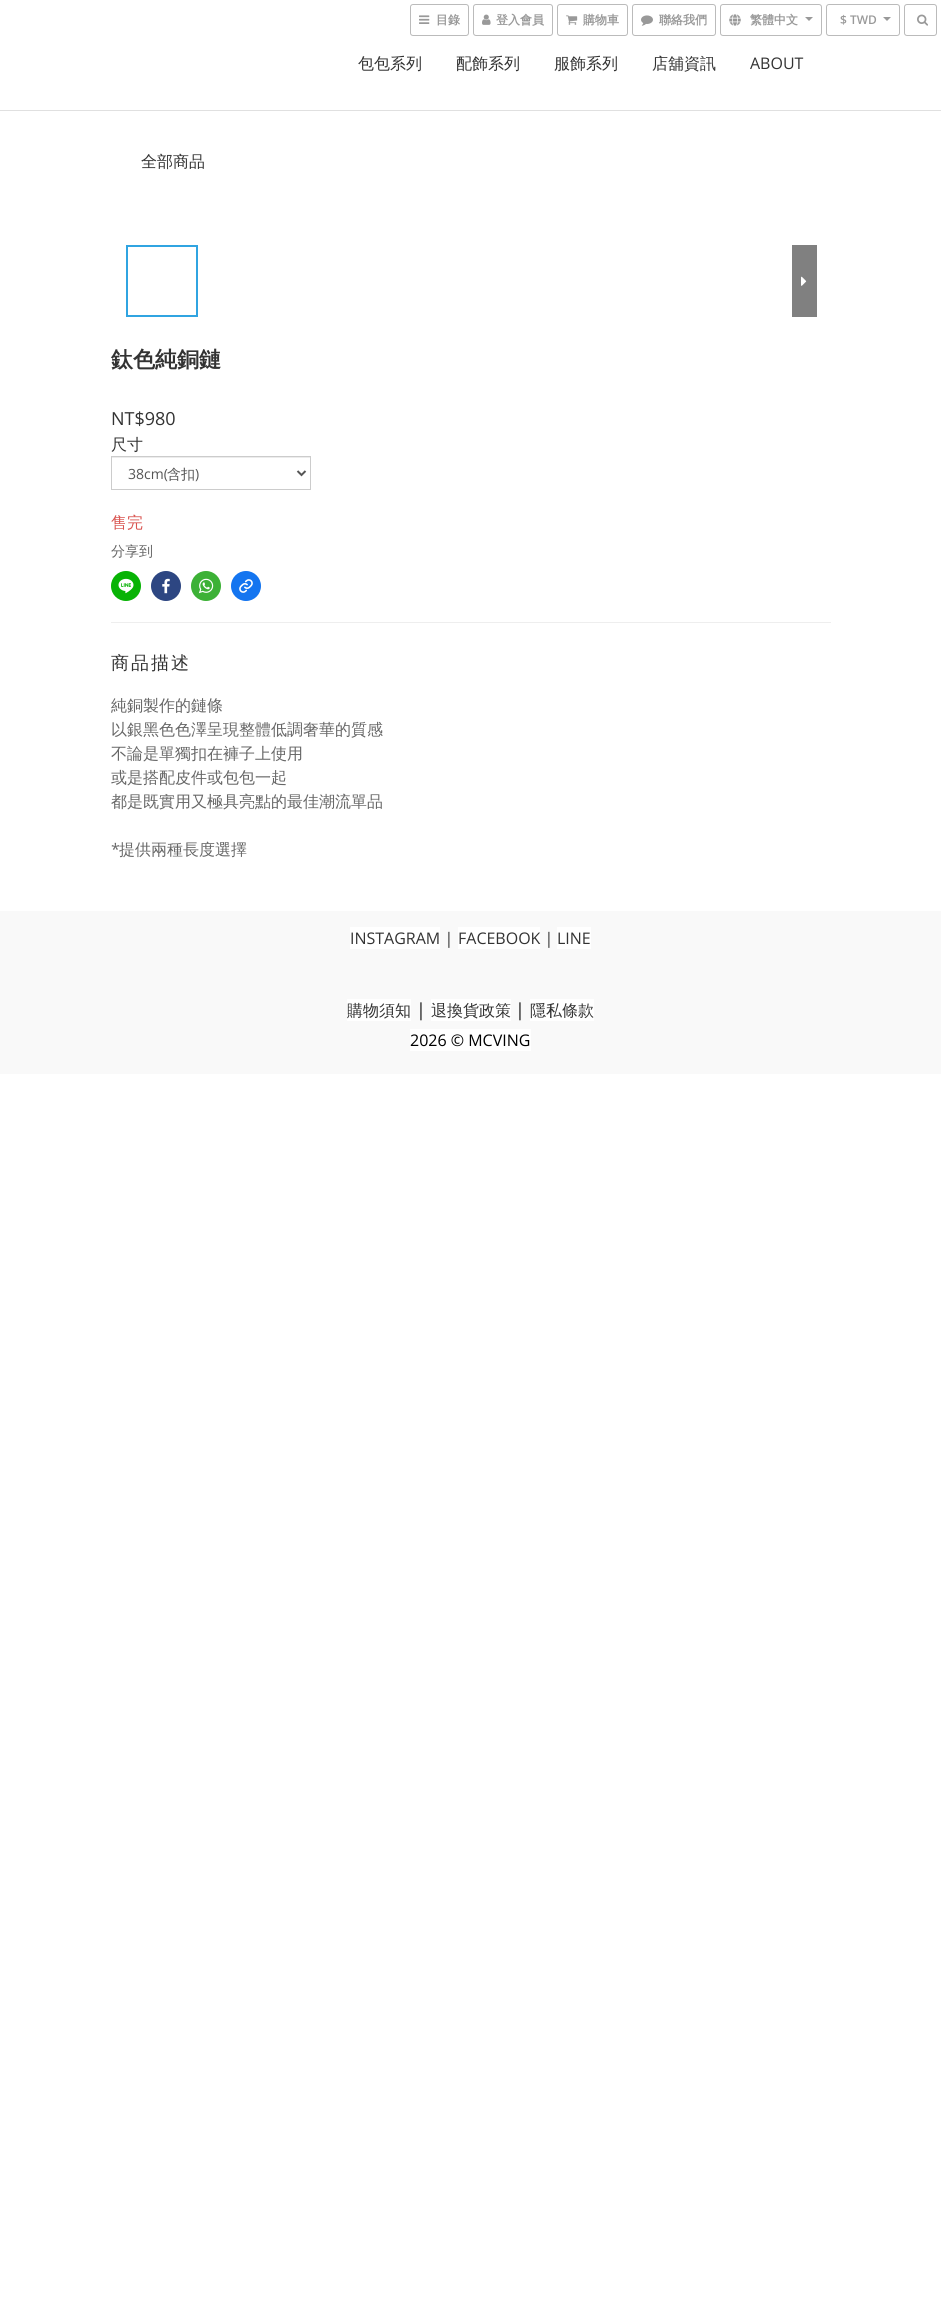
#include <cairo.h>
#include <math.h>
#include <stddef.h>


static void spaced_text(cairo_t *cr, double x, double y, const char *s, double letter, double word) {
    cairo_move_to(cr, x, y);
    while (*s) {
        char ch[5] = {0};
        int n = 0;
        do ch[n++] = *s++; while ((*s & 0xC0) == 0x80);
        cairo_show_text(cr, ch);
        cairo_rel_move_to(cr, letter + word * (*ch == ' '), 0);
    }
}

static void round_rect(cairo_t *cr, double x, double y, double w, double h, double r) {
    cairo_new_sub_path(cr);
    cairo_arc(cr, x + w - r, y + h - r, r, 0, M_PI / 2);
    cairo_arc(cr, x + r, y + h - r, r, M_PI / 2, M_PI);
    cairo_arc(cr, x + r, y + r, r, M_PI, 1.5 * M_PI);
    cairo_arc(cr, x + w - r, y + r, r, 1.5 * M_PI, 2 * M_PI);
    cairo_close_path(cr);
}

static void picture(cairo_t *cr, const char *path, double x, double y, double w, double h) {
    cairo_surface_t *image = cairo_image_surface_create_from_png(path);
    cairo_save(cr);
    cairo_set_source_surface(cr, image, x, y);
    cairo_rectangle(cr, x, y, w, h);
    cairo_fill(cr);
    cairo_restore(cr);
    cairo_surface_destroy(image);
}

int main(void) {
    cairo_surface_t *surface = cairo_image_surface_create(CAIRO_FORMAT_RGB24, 941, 2314);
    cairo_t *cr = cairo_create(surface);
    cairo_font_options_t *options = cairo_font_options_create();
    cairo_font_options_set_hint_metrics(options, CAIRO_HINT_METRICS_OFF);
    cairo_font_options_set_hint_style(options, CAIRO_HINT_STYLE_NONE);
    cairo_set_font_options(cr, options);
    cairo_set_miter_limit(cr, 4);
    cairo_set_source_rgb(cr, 1, 1, 1);
    cairo_paint(cr);
    round_rect(cr, 410.5, 4.5, 58, 31, 2.5);
    cairo_set_source_rgb(cr, 0.733, 0.733, 0.733);
    cairo_set_line_width(cr, 1);
    cairo_stroke(cr);
    picture(cr, "img1.png", 419, 15, 11, 9);
    cairo_select_font_face(cr, "WenQuanYi Zen Hei", CAIRO_FONT_SLANT_NORMAL, CAIRO_FONT_WEIGHT_BOLD);
    cairo_set_font_size(cr, 12);
    cairo_set_source_rgb(cr, 0.6, 0.6, 0.6);
    cairo_move_to(cr, 436, 24);
    cairo_show_text(cr, "目錄");
    round_rect(cr, 473.5, 4.5, 79, 31, 2.5);
    cairo_set_source_rgb(cr, 0.733, 0.733, 0.733);
    cairo_stroke(cr);
    picture(cr, "img2.png", 482, 14, 9, 11);
    cairo_set_source_rgb(cr, 0.6, 0.6, 0.6);
    cairo_move_to(cr, 496, 24);
    cairo_show_text(cr, "登入會員");
    round_rect(cr, 557.5, 4.5, 70, 31, 2.5);
    cairo_set_source_rgb(cr, 0.733, 0.733, 0.733);
    cairo_stroke(cr);
    picture(cr, "img3.png", 566, 15, 12, 10);
    cairo_set_source_rgb(cr, 0.6, 0.6, 0.6);
    cairo_move_to(cr, 583, 24);
    cairo_show_text(cr, "購物車");
    round_rect(cr, 632.5, 4.5, 83, 31, 2.5);
    cairo_set_source_rgb(cr, 0.733, 0.733, 0.733);
    cairo_stroke(cr);
    picture(cr, "img4.png", 641, 15, 12, 11);
    cairo_set_source_rgb(cr, 0.6, 0.6, 0.6);
    cairo_move_to(cr, 659, 24);
    cairo_show_text(cr, "聯絡我們");
    round_rect(cr, 720.5, 4.5, 101, 31, 2.5);
    cairo_set_source_rgb(cr, 0.733, 0.733, 0.733);
    cairo_stroke(cr);
    picture(cr, "img5.png", 729, 14, 12, 12);
    cairo_set_source_rgb(cr, 0.6, 0.6, 0.6);
    cairo_move_to(cr, 750, 24);
    cairo_show_text(cr, "繁體中文");
    cairo_new_path(cr);
    cairo_move_to(cr, 805, 17);
    cairo_line_to(cr, 813, 17);
    cairo_line_to(cr, 809, 21);
    cairo_close_path(cr);
    cairo_fill(cr);
    round_rect(cr, 826.5, 4.5, 73, 31, 2.5);
    cairo_set_source_rgb(cr, 0.733, 0.733, 0.733);
    cairo_stroke(cr);
    cairo_select_font_face(cr, "Open Sans SemiBold", CAIRO_FONT_SLANT_NORMAL, CAIRO_FONT_WEIGHT_NORMAL);
    cairo_set_source_rgb(cr, 0.6, 0.6, 0.6);
    cairo_move_to(cr, 840, 24);
    cairo_show_text(cr, "$ TWD");
    cairo_new_path(cr);
    cairo_move_to(cr, 883, 17);
    cairo_line_to(cr, 891, 17);
    cairo_line_to(cr, 887, 21);
    cairo_close_path(cr);
    cairo_fill(cr);
    round_rect(cr, 904.5, 4.5, 32, 31, 2.5);
    cairo_set_source_rgb(cr, 0.733, 0.733, 0.733);
    cairo_stroke(cr);
    picture(cr, "img6.png", 917, 14, 11, 12);
    cairo_set_source_rgb(cr, 0.878, 0.878, 0.878);
    cairo_rectangle(cr, 0, 110, 941, 1);
    cairo_fill(cr);
    cairo_select_font_face(cr, "WenQuanYi Zen Hei Medium", CAIRO_FONT_SLANT_NORMAL, CAIRO_FONT_WEIGHT_NORMAL);
    cairo_set_font_size(cr, 16);
    cairo_set_source_rgb(cr, 0.2, 0.2, 0.2);
    cairo_move_to(cr, 358, 69);
    cairo_show_text(cr, "包包系列");
    cairo_move_to(cr, 456, 69);
    cairo_show_text(cr, "配飾系列");
    cairo_move_to(cr, 554, 69);
    cairo_show_text(cr, "服飾系列");
    cairo_move_to(cr, 652, 69);
    cairo_show_text(cr, "店舖資訊");
    cairo_select_font_face(cr, "Open Sans", CAIRO_FONT_SLANT_NORMAL, CAIRO_FONT_WEIGHT_NORMAL);
    cairo_move_to(cr, 750, 69);
    cairo_show_text(cr, "ABOUT");
    cairo_select_font_face(cr, "WenQuanYi Zen Hei Medium", CAIRO_FONT_SLANT_NORMAL, CAIRO_FONT_WEIGHT_NORMAL);
    cairo_move_to(cr, 141, 167);
    cairo_show_text(cr, "全部商品");
    cairo_rectangle(cr, 127, 246, 70, 70);
    cairo_set_source_rgb(cr, 0.188, 0.643, 0.882);
    cairo_set_line_width(cr, 2);
    cairo_stroke(cr);
    cairo_set_source_rgb(cr, 0.502, 0.502, 0.502);
    cairo_rectangle(cr, 792, 245, 25, 72);
    cairo_fill(cr);
    picture(cr, "img7.png", 801, 276, 6, 10);
    cairo_select_font_face(cr, "WenQuanYi Zen Hei", CAIRO_FONT_SLANT_NORMAL, CAIRO_FONT_WEIGHT_BOLD);
    cairo_set_font_size(cr, 22);
    cairo_set_source_rgb(cr, 0.2, 0.2, 0.2);
    cairo_move_to(cr, 111, 367);
    cairo_show_text(cr, "鈦色純銅鏈");
    cairo_select_font_face(cr, "Open Sans", CAIRO_FONT_SLANT_NORMAL, CAIRO_FONT_WEIGHT_NORMAL);
    cairo_set_font_size(cr, 18);
    cairo_move_to(cr, 111, 425);
    cairo_show_text(cr, "NT$980");
    cairo_select_font_face(cr, "WenQuanYi Zen Hei Medium", CAIRO_FONT_SLANT_NORMAL, CAIRO_FONT_WEIGHT_NORMAL);
    cairo_set_font_size(cr, 16);
    cairo_move_to(cr, 111, 450);
    cairo_show_text(cr, "尺寸");
    cairo_set_source_rgb(cr, 0.925, 0.925, 0.925);
    cairo_rectangle(cr, 112, 457, 198, 1);
    cairo_fill(cr);
    cairo_rectangle(cr, 111.5, 456.5, 199, 33);
    cairo_set_source_rgb(cr, 0.8, 0.8, 0.8);
    cairo_set_line_width(cr, 1);
    cairo_stroke(cr);
    cairo_new_path(cr);
    cairo_move_to(cr, 297.5, 471);
    cairo_line_to(cr, 301.5, 475);
    cairo_line_to(cr, 305.5, 471);
    cairo_set_source_rgb(cr, 0.333, 0.333, 0.333);
    cairo_set_line_width(cr, 2);
    cairo_stroke(cr);
    cairo_select_font_face(cr, "Open Sans", CAIRO_FONT_SLANT_NORMAL, CAIRO_FONT_WEIGHT_NORMAL);
    cairo_set_font_size(cr, 14);
    cairo_move_to(cr, 128, 479);
    cairo_show_text(cr, "38cm(");
    cairo_select_font_face(cr, "WenQuanYi Zen Hei Medium", CAIRO_FONT_SLANT_NORMAL, CAIRO_FONT_WEIGHT_NORMAL);
    cairo_move_to(cr, 167, 479);
    cairo_show_text(cr, "含扣");
    cairo_select_font_face(cr, "Open Sans", CAIRO_FONT_SLANT_NORMAL, CAIRO_FONT_WEIGHT_NORMAL);
    cairo_move_to(cr, 195, 479);
    cairo_show_text(cr, ")");
    cairo_select_font_face(cr, "WenQuanYi Zen Hei Medium", CAIRO_FONT_SLANT_NORMAL, CAIRO_FONT_WEIGHT_NORMAL);
    cairo_set_font_size(cr, 16);
    cairo_set_source_rgb(cr, 0.851, 0.325, 0.31);
    cairo_move_to(cr, 111, 528);
    cairo_show_text(cr, "售完");
    cairo_set_font_size(cr, 14);
    cairo_set_source_rgb(cr, 0.4, 0.4, 0.4);
    cairo_move_to(cr, 111, 556);
    cairo_show_text(cr, "分享到");
    cairo_set_source_rgb(cr, 0.035, 0.702, 0.02);
    cairo_new_path(cr);
    cairo_arc(cr, 126, 586, 15, 0, 2 * M_PI);
    cairo_fill(cr);
    picture(cr, "img8.png", 118, 578, 16, 16);
    cairo_set_source_rgb(cr, 0.176, 0.275, 0.51);
    cairo_arc(cr, 166, 586, 15, 0, 2 * M_PI);
    cairo_fill(cr);
    picture(cr, "img9.png", 162, 578, 8, 16);
    cairo_set_source_rgb(cr, 0.235, 0.694, 0.212);
    cairo_arc(cr, 206, 586, 15, 0, 2 * M_PI);
    cairo_fill(cr);
    picture(cr, "img10.png", 198, 578, 16, 16);
    cairo_set_source_rgb(cr, 0.082, 0.459, 0.941);
    cairo_arc(cr, 246, 586, 15, 0, 2 * M_PI);
    cairo_fill(cr);
    picture(cr, "img11.png", 239, 579, 14, 14);
    cairo_set_source_rgb(cr, 0.933, 0.933, 0.933);
    cairo_rectangle(cr, 111, 622, 720, 1);
    cairo_fill(cr);
    cairo_set_font_size(cr, 18);
    cairo_set_source_rgb(cr, 0.2, 0.2, 0.2);
    spaced_text(cr, 111, 669, "商品描述", 2, 0);
    cairo_set_font_size(cr, 16);
    cairo_set_source_rgb(cr, 0.4, 0.4, 0.4);
    cairo_move_to(cr, 111, 711);
    cairo_show_text(cr, "純銅製作的鏈條");
    cairo_move_to(cr, 111, 735);
    cairo_show_text(cr, "以銀黑色色澤呈現整體低調奢華的質感");
    cairo_move_to(cr, 111, 759);
    cairo_show_text(cr, "不論是單獨扣在褲子上使用");
    cairo_move_to(cr, 111, 783);
    cairo_show_text(cr, "或是搭配皮件或包包一起");
    cairo_move_to(cr, 111, 807);
    cairo_show_text(cr, "都是既實用又極具亮點的最佳潮流單品");
    cairo_select_font_face(cr, "Open Sans", CAIRO_FONT_SLANT_NORMAL, CAIRO_FONT_WEIGHT_NORMAL);
    cairo_move_to(cr, 111, 855);
    cairo_show_text(cr, "*");
    cairo_select_font_face(cr, "WenQuanYi Zen Hei Medium", CAIRO_FONT_SLANT_NORMAL, CAIRO_FONT_WEIGHT_NORMAL);
    cairo_move_to(cr, 119, 855);
    cairo_show_text(cr, "提供兩種長度選擇");
    cairo_set_source_rgb(cr, 0.973, 0.973, 0.973);
    cairo_rectangle(cr, 0, 911, 941, 163);
    cairo_fill(cr);
    cairo_set_source_rgb(cr, 1, 1, 1);
    cairo_rectangle(cr, 350, 927, 90, 22);
    cairo_fill(cr);
    cairo_select_font_face(cr, "Open Sans", CAIRO_FONT_SLANT_NORMAL, CAIRO_FONT_WEIGHT_NORMAL);
    cairo_set_source_rgb(cr, 0.2, 0.2, 0.2);
    cairo_move_to(cr, 350, 944);
    cairo_show_text(cr, "INSTAGRAM |");
    cairo_set_source_rgb(cr, 1, 1, 1);
    cairo_rectangle(cr, 458, 927, 82, 22);
    cairo_fill(cr);
    cairo_set_source_rgb(cr, 0.2, 0.2, 0.2);
    cairo_move_to(cr, 458, 944);
    cairo_show_text(cr, "FACEBOOK |");
    cairo_set_source_rgb(cr, 1, 1, 1);
    cairo_rectangle(cr, 557, 927, 34, 22);
    cairo_fill(cr);
    cairo_set_source_rgb(cr, 0.2, 0.2, 0.2);
    cairo_move_to(cr, 557, 944);
    cairo_show_text(cr, "LINE");
    cairo_set_source_rgb(cr, 1, 1, 1);
    cairo_rectangle(cr, 347, 999, 64, 22);
    cairo_fill(cr);
    cairo_select_font_face(cr, "WenQuanYi Zen Hei Medium", CAIRO_FONT_SLANT_NORMAL, CAIRO_FONT_WEIGHT_NORMAL);
    cairo_set_source_rgb(cr, 0.2, 0.2, 0.2);
    cairo_move_to(cr, 347, 1016);
    cairo_show_text(cr, "購物須知");
    cairo_select_font_face(cr, "Open Sans Medium", CAIRO_FONT_SLANT_NORMAL, CAIRO_FONT_WEIGHT_NORMAL);
    cairo_set_font_size(cr, 18);
    cairo_move_to(cr, 416, 1016);
    cairo_show_text(cr, "|");
    cairo_set_source_rgb(cr, 1, 1, 1);
    cairo_rectangle(cr, 431, 999, 80, 22);
    cairo_fill(cr);
    cairo_select_font_face(cr, "WenQuanYi Zen Hei Medium", CAIRO_FONT_SLANT_NORMAL, CAIRO_FONT_WEIGHT_NORMAL);
    cairo_set_font_size(cr, 16);
    cairo_set_source_rgb(cr, 0.2, 0.2, 0.2);
    cairo_move_to(cr, 431, 1016);
    cairo_show_text(cr, "退換貨政策");
    cairo_select_font_face(cr, "Open Sans Medium", CAIRO_FONT_SLANT_NORMAL, CAIRO_FONT_WEIGHT_NORMAL);
    cairo_set_font_size(cr, 18);
    cairo_move_to(cr, 515, 1016);
    cairo_show_text(cr, "|");
    cairo_set_source_rgb(cr, 1, 1, 1);
    cairo_rectangle(cr, 530, 999, 64, 22);
    cairo_fill(cr);
    cairo_select_font_face(cr, "WenQuanYi Zen Hei Medium", CAIRO_FONT_SLANT_NORMAL, CAIRO_FONT_WEIGHT_NORMAL);
    cairo_set_font_size(cr, 16);
    cairo_set_source_rgb(cr, 0.2, 0.2, 0.2);
    cairo_move_to(cr, 530, 1016);
    cairo_show_text(cr, "隱私條款");
    cairo_set_source_rgb(cr, 1, 1, 1);
    cairo_rectangle(cr, 410, 1029, 121, 22);
    cairo_fill(cr);
    cairo_select_font_face(cr, "Open Sans", CAIRO_FONT_SLANT_NORMAL, CAIRO_FONT_WEIGHT_NORMAL);
    cairo_set_source_rgb(cr, 0, 0, 0);
    cairo_move_to(cr, 410, 1046);
    cairo_show_text(cr, "2026 © MCVING");
    cairo_surface_write_to_png(surface, "page.png");
    cairo_font_options_destroy(options);
    cairo_destroy(cr);
    cairo_surface_destroy(surface);
    return 0;
}
